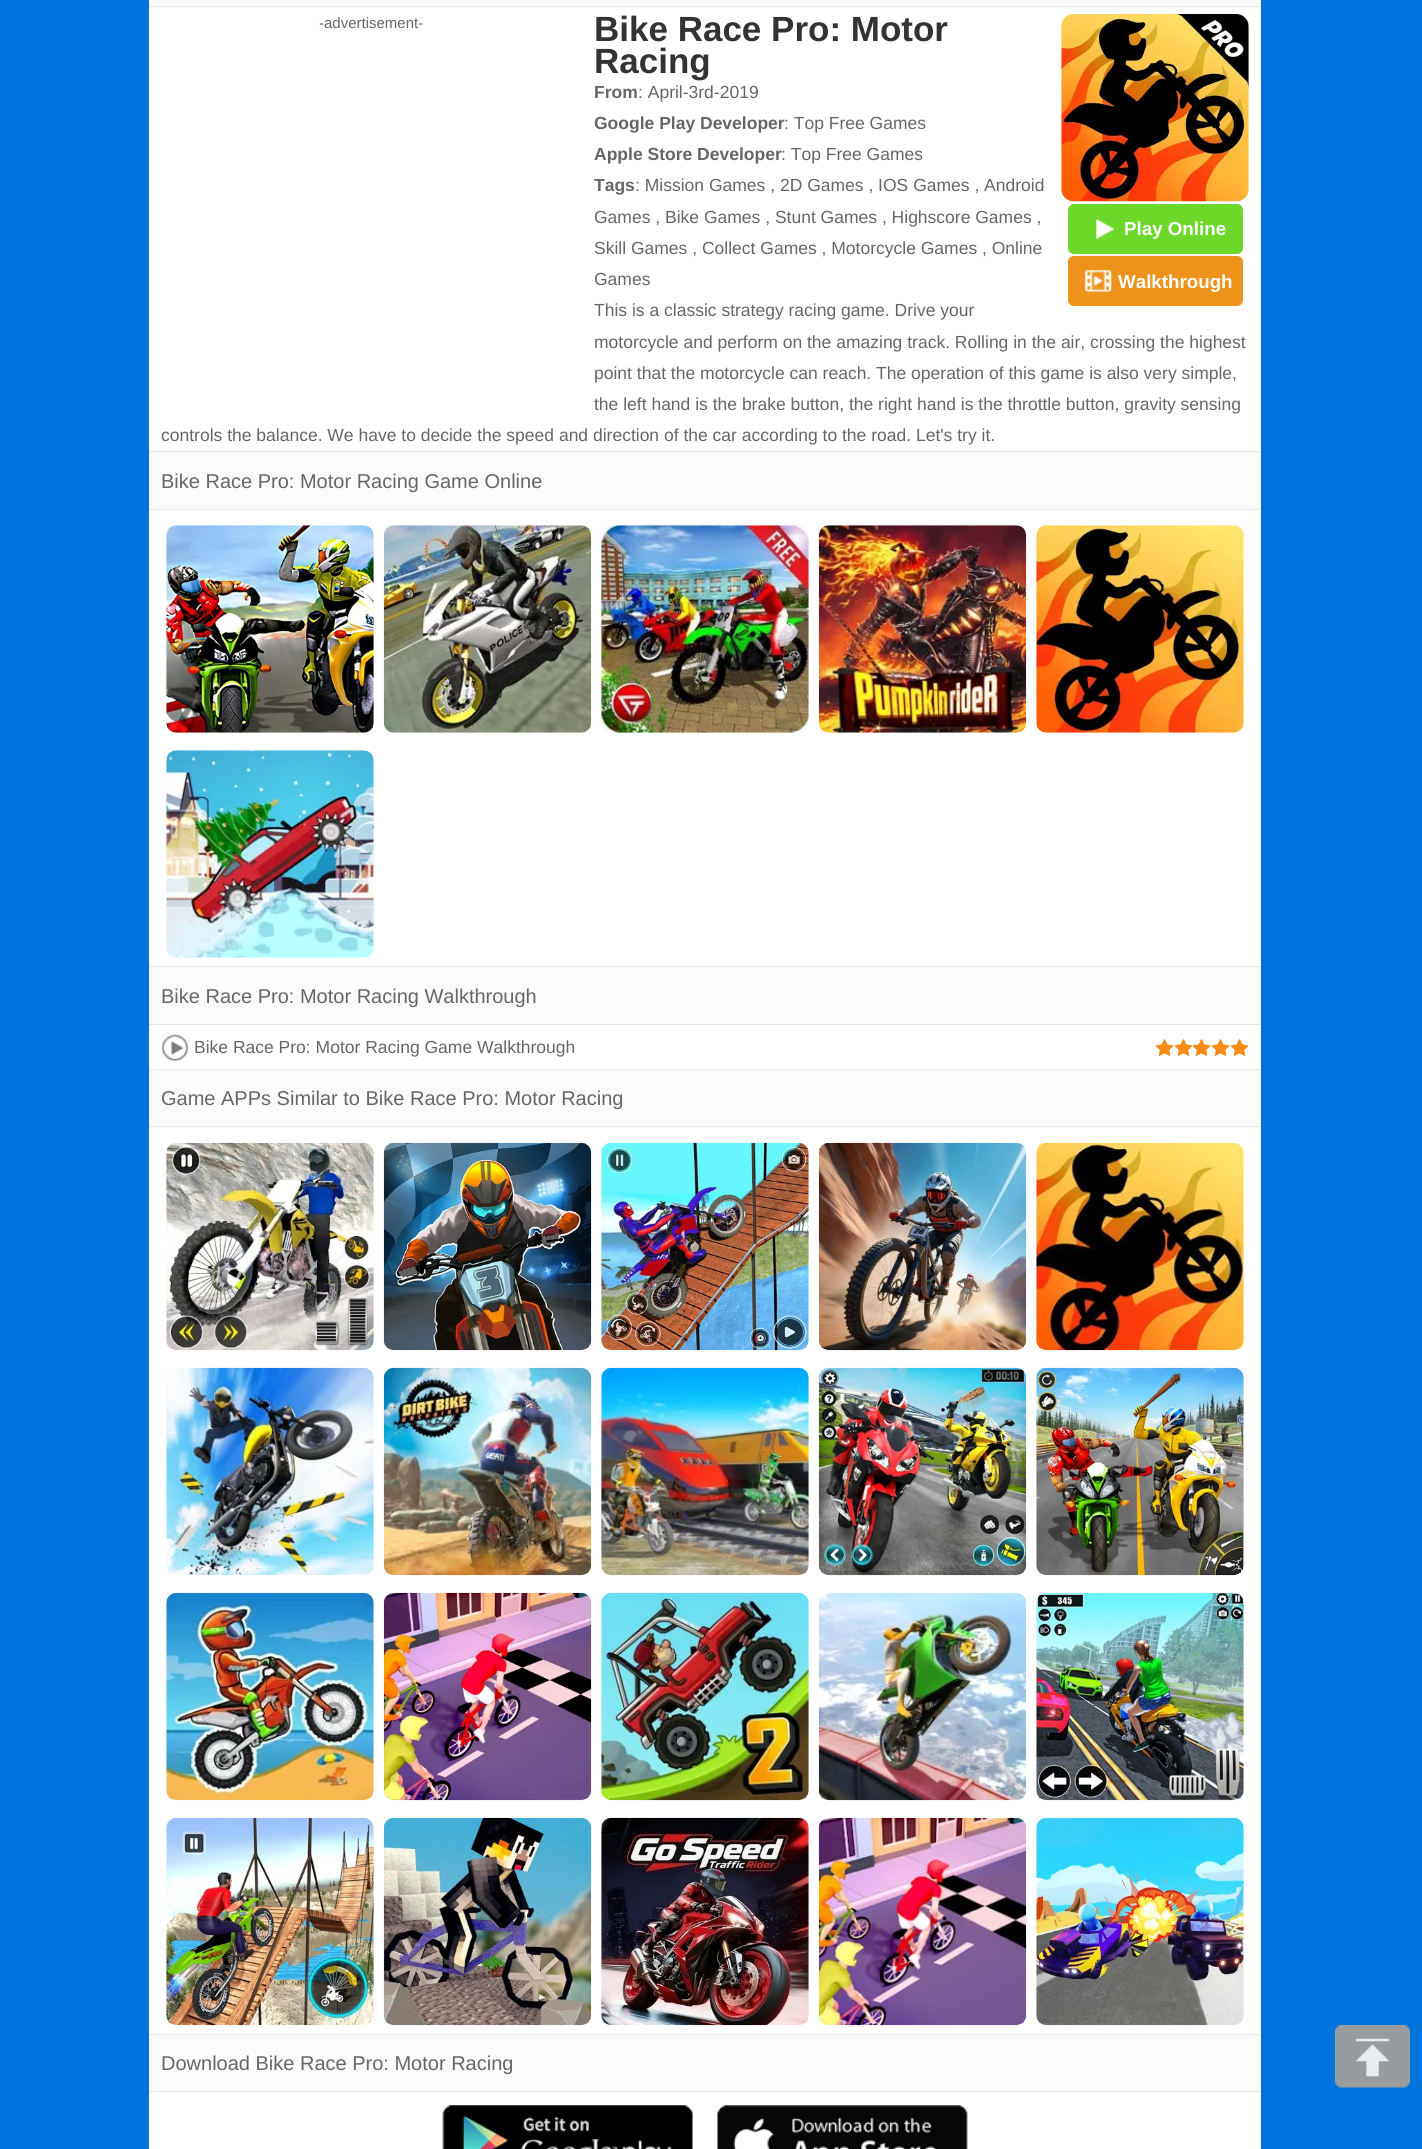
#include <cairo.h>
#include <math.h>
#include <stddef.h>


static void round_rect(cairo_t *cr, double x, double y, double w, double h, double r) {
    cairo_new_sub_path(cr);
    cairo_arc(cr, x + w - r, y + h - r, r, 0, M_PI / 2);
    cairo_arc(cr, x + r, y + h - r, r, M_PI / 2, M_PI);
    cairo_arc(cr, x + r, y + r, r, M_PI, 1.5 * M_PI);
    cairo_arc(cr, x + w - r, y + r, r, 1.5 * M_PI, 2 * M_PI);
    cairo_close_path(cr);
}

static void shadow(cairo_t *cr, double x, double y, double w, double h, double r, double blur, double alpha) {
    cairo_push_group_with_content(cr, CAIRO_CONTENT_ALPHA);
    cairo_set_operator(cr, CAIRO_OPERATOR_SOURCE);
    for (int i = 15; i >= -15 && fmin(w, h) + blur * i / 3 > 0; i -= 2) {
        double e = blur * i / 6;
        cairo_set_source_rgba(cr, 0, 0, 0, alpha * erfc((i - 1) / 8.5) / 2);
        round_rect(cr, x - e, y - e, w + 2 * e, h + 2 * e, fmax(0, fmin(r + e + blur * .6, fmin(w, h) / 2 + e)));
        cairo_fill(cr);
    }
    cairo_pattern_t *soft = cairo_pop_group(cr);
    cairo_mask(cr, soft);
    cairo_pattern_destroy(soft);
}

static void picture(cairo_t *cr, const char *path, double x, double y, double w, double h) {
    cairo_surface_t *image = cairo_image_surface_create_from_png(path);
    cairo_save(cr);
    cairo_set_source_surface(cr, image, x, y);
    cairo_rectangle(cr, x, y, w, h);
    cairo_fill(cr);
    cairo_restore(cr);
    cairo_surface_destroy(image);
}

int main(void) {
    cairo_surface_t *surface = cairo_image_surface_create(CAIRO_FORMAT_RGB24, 1422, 2149);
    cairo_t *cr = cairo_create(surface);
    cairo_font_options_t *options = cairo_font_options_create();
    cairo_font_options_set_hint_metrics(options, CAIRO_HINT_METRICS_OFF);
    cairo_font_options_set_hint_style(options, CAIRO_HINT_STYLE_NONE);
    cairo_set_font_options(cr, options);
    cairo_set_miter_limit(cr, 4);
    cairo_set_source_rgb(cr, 0, 0.451, 0.867);
    cairo_paint(cr);
    cairo_save(cr);
    cairo_rectangle(cr, 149, 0, 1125, 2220);
    cairo_clip(cr);
    cairo_set_source_rgb(cr, 0, 0, 0);
    shadow(cr, 149, -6, 1112, 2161, 0, 2, 0.15);
    cairo_restore(cr);
    cairo_set_source_rgb(cr, 1, 1, 1);
    cairo_rectangle(cr, 149, 8, 1112, 2141);
    cairo_fill(cr);
    cairo_set_source_rgb(cr, 0.984, 0.984, 0.984);
    cairo_rectangle(cr, 149, 0, 1112, 8);
    cairo_fill(cr);
    cairo_set_source_rgb(cr, 0.91, 0.91, 0.91);
    cairo_rectangle(cr, 149, 6, 1112, 1);
    cairo_fill(cr);
    cairo_select_font_face(cr, "Liberation Sans", CAIRO_FONT_SLANT_NORMAL, CAIRO_FONT_WEIGHT_NORMAL);
    cairo_set_font_size(cr, 15);
    cairo_set_source_rgb(cr, 0.4, 0.4, 0.4);
    cairo_move_to(cr, 319, 28);
    cairo_show_text(cr, "-advertisement-");
    cairo_select_font_face(cr, "Liberation Sans", CAIRO_FONT_SLANT_NORMAL, CAIRO_FONT_WEIGHT_BOLD);
    cairo_set_font_size(cr, 35);
    cairo_set_source_rgb(cr, 0.2, 0.2, 0.2);
    cairo_move_to(cr, 594, 41);
    cairo_show_text(cr, "Bike Race Pro: Motor");
    cairo_move_to(cr, 594, 73);
    cairo_show_text(cr, "Racing");
    cairo_set_font_size(cr, 17.5);
    cairo_set_source_rgb(cr, 0.4, 0.4, 0.4);
    cairo_move_to(cr, 594, 98);
    cairo_show_text(cr, "From");
    cairo_select_font_face(cr, "Liberation Sans", CAIRO_FONT_SLANT_NORMAL, CAIRO_FONT_WEIGHT_NORMAL);
    cairo_move_to(cr, 638, 98);
    cairo_show_text(cr, ": April-3rd-2019");
    cairo_select_font_face(cr, "Liberation Sans", CAIRO_FONT_SLANT_NORMAL, CAIRO_FONT_WEIGHT_BOLD);
    cairo_move_to(cr, 594, 129);
    cairo_show_text(cr, "Google Play Developer");
    cairo_select_font_face(cr, "Liberation Sans", CAIRO_FONT_SLANT_NORMAL, CAIRO_FONT_WEIGHT_NORMAL);
    cairo_move_to(cr, 784, 129);
    cairo_show_text(cr, ": Top Free Games");
    cairo_select_font_face(cr, "Liberation Sans", CAIRO_FONT_SLANT_NORMAL, CAIRO_FONT_WEIGHT_BOLD);
    cairo_move_to(cr, 594, 160);
    cairo_show_text(cr, "Apple Store Developer");
    cairo_select_font_face(cr, "Liberation Sans", CAIRO_FONT_SLANT_NORMAL, CAIRO_FONT_WEIGHT_NORMAL);
    cairo_move_to(cr, 781, 160);
    cairo_show_text(cr, ": Top Free Games");
    cairo_select_font_face(cr, "Liberation Sans", CAIRO_FONT_SLANT_NORMAL, CAIRO_FONT_WEIGHT_BOLD);
    cairo_move_to(cr, 594, 191);
    cairo_show_text(cr, "Tags");
    cairo_select_font_face(cr, "Liberation Sans", CAIRO_FONT_SLANT_NORMAL, CAIRO_FONT_WEIGHT_NORMAL);
    cairo_move_to(cr, 635, 191);
    cairo_show_text(cr, ": Mission Games , 2D Games , IOS Games , Android");
    cairo_move_to(cr, 594, 223);
    cairo_show_text(cr, "Games , Bike Games , Stunt Games , Highscore Games ,");
    cairo_move_to(cr, 594, 254);
    cairo_show_text(cr, "Skill Games , Collect Games , Motorcycle Games , Online");
    picture(cr, "img1.png", 1061, 14, 188, 188);
    cairo_set_source_rgb(cr, 0.427, 0.847, 0.161);
    round_rect(cr, 1068, 204, 175, 50, 6);
    cairo_fill(cr);
    picture(cr, "img2.png", 1096, 218, 18, 22);
    cairo_select_font_face(cr, "Liberation Sans", CAIRO_FONT_SLANT_NORMAL, CAIRO_FONT_WEIGHT_BOLD);
    cairo_set_font_size(cr, 18.75);
    cairo_set_source_rgb(cr, 1, 1, 1);
    cairo_move_to(cr, 1124, 235);
    cairo_show_text(cr, "Play Online");
    cairo_set_source_rgb(cr, 0.929, 0.576, 0.106);
    round_rect(cr, 1068, 256, 175, 50, 6);
    cairo_fill(cr);
    picture(cr, "img3.png", 1084, 270, 28, 22);
    cairo_set_source_rgb(cr, 1, 1, 1);
    cairo_move_to(cr, 1118, 288);
    cairo_show_text(cr, "Walkthrough");
    cairo_select_font_face(cr, "Liberation Sans", CAIRO_FONT_SLANT_NORMAL, CAIRO_FONT_WEIGHT_NORMAL);
    cairo_set_font_size(cr, 17.5);
    cairo_set_source_rgb(cr, 0.4, 0.4, 0.4);
    cairo_move_to(cr, 594, 285);
    cairo_show_text(cr, "Games");
    cairo_move_to(cr, 594, 316);
    cairo_show_text(cr, "This is a classic strategy racing game. Drive your");
    cairo_move_to(cr, 594, 348);
    cairo_show_text(cr, "motorcycle and perform on the amazing track. Rolling in the air, crossing the highest");
    cairo_move_to(cr, 594, 379);
    cairo_show_text(cr, "point that the motorcycle can reach. The operation of this game is also very simple,");
    cairo_move_to(cr, 594, 410);
    cairo_show_text(cr, "the left hand is the brake button, the right hand is the throttle button, gravity sensing");
    cairo_move_to(cr, 161, 441);
    cairo_show_text(cr, "controls the balance. We have to decide the speed and direction of the car according to the road. Let's try it.");
    cairo_set_source_rgb(cr, 0.984, 0.984, 0.984);
    cairo_rectangle(cr, 149, 452, 1112, 57);
    cairo_fill(cr);
    cairo_set_source_rgb(cr, 0.91, 0.91, 0.91);
    cairo_rectangle(cr, 149, 451, 1112, 1);
    cairo_fill(cr);
    cairo_rectangle(cr, 149, 509, 1112, 1);
    cairo_fill(cr);
    cairo_set_font_size(cr, 20);
    cairo_set_source_rgb(cr, 0.4, 0.4, 0.4);
    cairo_move_to(cr, 161, 488);
    cairo_show_text(cr, "Bike Race Pro: Motor Racing Game Online");
    picture(cr, "img4.png", 166, 525, 208, 208);
    picture(cr, "img5.png", 383, 525, 209, 208);
    picture(cr, "img6.png", 601, 525, 208, 208);
    picture(cr, "img7.png", 818, 525, 209, 208);
    picture(cr, "img8.png", 1036, 525, 208, 208);
    picture(cr, "img9.png", 166, 750, 208, 208);
    cairo_set_source_rgb(cr, 0.984, 0.984, 0.984);
    cairo_rectangle(cr, 149, 967, 1112, 57);
    cairo_fill(cr);
    cairo_set_source_rgb(cr, 0.91, 0.91, 0.91);
    cairo_rectangle(cr, 149, 966, 1112, 1);
    cairo_fill(cr);
    cairo_rectangle(cr, 149, 1024, 1112, 1);
    cairo_fill(cr);
    cairo_set_source_rgb(cr, 0.4, 0.4, 0.4);
    cairo_move_to(cr, 161, 1003);
    cairo_show_text(cr, "Bike Race Pro: Motor Racing Walkthrough");
    picture(cr, "img10.png", 161, 1034, 28, 28);
    cairo_set_font_size(cr, 17.5);
    cairo_move_to(cr, 194, 1053);
    cairo_show_text(cr, "Bike Race Pro: Motor Racing Game Walkthrough");
    picture(cr, "img11.png", 1155, 1039, 94, 17);
    picture(cr, "img12.png", 1155, 1039, 94, 17);
    cairo_set_source_rgb(cr, 0.984, 0.984, 0.984);
    cairo_rectangle(cr, 149, 1070, 1112, 58);
    cairo_fill(cr);
    cairo_set_source_rgb(cr, 0.91, 0.91, 0.91);
    cairo_rectangle(cr, 149, 1069, 1112, 1);
    cairo_fill(cr);
    cairo_rectangle(cr, 149, 1126, 1112, 1);
    cairo_fill(cr);
    cairo_set_font_size(cr, 20);
    cairo_set_source_rgb(cr, 0.4, 0.4, 0.4);
    cairo_move_to(cr, 161, 1105);
    cairo_show_text(cr, "Game APPs Similar to Bike Race Pro: Motor Racing");
    picture(cr, "img13.png", 166, 1142, 208, 209);
    picture(cr, "img14.png", 383, 1142, 209, 209);
    picture(cr, "img15.png", 601, 1142, 208, 209);
    picture(cr, "img16.png", 818, 1142, 209, 209);
    picture(cr, "img17.png", 1036, 1142, 208, 209);
    picture(cr, "img18.png", 166, 1367, 208, 209);
    picture(cr, "img19.png", 383, 1367, 209, 209);
    picture(cr, "img20.png", 601, 1367, 208, 209);
    picture(cr, "img21.png", 818, 1367, 209, 209);
    picture(cr, "img22.png", 1036, 1367, 208, 209);
    picture(cr, "img23.png", 166, 1592, 208, 209);
    picture(cr, "img24.png", 383, 1592, 209, 209);
    picture(cr, "img25.png", 601, 1592, 208, 209);
    picture(cr, "img26.png", 818, 1592, 209, 209);
    picture(cr, "img27.png", 1036, 1592, 208, 209);
    picture(cr, "img28.png", 166, 1817, 208, 209);
    picture(cr, "img29.png", 383, 1817, 209, 209);
    picture(cr, "img30.png", 601, 1817, 208, 209);
    picture(cr, "img31.png", 818, 1817, 209, 209);
    picture(cr, "img32.png", 1036, 1817, 208, 209);
    cairo_set_source_rgb(cr, 0.984, 0.984, 0.984);
    cairo_rectangle(cr, 149, 2035, 1112, 58);
    cairo_fill(cr);
    cairo_set_source_rgb(cr, 0.91, 0.91, 0.91);
    cairo_rectangle(cr, 149, 2034, 1112, 1);
    cairo_fill(cr);
    cairo_rectangle(cr, 149, 2091, 1112, 1);
    cairo_fill(cr);
    cairo_set_source_rgb(cr, 0.4, 0.4, 0.4);
    cairo_move_to(cr, 161, 2070);
    cairo_show_text(cr, "Download Bike Race Pro: Motor Racing");
    picture(cr, "img33.png", 442, 2105, 251, 44);
    picture(cr, "img34.png", 717, 2105, 251, 44);
    picture(cr, "img35.png", 1335, 2025, 75, 63);
    cairo_surface_write_to_png(surface, "page.png");
    cairo_font_options_destroy(options);
    cairo_destroy(cr);
    cairo_surface_destroy(surface);
    return 0;
}
